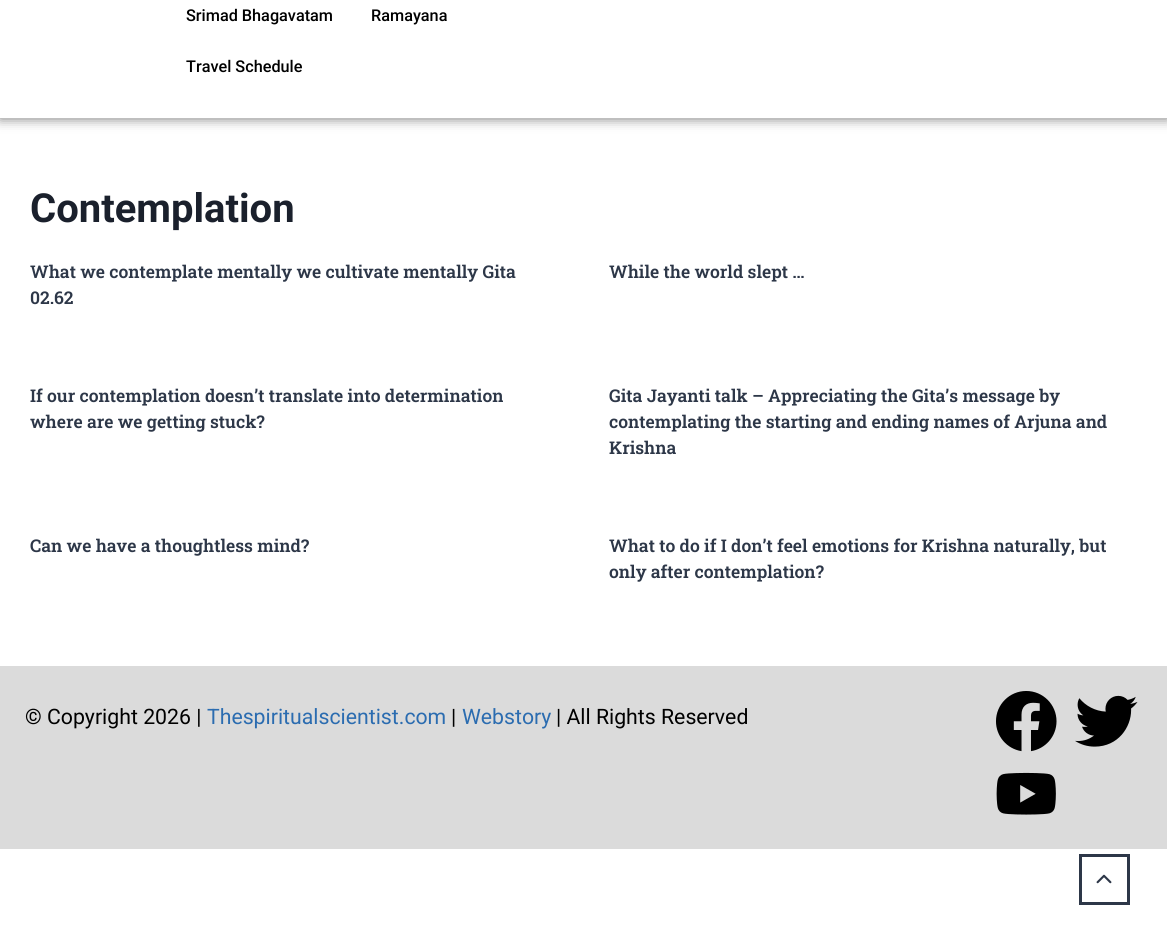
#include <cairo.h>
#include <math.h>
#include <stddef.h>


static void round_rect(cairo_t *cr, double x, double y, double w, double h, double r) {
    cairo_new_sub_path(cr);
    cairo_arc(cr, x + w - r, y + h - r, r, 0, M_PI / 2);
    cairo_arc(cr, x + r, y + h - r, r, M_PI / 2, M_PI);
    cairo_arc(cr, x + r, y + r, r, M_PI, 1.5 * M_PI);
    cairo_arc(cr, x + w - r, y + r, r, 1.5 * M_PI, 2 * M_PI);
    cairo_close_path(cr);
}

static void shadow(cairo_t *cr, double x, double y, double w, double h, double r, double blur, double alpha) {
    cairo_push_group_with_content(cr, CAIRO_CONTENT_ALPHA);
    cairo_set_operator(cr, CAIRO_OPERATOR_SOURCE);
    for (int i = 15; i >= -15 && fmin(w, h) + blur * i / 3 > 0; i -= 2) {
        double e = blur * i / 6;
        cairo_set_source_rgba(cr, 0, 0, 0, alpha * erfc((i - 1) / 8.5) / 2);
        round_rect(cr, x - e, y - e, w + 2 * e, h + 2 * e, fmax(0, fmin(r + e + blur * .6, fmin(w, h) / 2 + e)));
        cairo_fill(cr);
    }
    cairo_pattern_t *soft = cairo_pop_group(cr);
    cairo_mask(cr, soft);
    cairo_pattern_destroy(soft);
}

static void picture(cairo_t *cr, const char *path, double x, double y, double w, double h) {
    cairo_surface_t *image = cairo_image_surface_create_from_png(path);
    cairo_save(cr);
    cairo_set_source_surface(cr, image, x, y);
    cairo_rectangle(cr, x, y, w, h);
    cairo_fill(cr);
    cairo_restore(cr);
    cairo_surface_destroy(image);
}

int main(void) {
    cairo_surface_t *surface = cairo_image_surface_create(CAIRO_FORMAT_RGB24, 1167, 942);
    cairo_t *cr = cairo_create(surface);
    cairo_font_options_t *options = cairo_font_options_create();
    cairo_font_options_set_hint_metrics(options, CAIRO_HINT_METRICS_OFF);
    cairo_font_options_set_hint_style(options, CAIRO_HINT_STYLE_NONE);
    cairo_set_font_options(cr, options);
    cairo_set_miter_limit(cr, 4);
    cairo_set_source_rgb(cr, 1, 1, 1);
    cairo_paint(cr);
    cairo_set_source_rgb(cr, 0, 0, 0);
    shadow(cr, 0, -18, 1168, 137, 0, 6, 0.5);
    cairo_set_source_rgb(cr, 1, 1, 1);
    cairo_rectangle(cr, 0, 0, 1167, 118);
    cairo_fill(cr);
    cairo_select_font_face(cr, "Roboto Medium", CAIRO_FONT_SLANT_NORMAL, CAIRO_FONT_WEIGHT_NORMAL);
    cairo_set_font_size(cr, 16.25);
    cairo_set_source_rgb(cr, 0, 0, 0);
    cairo_move_to(cr, 186, 21);
    cairo_show_text(cr, "Srimad Bhagavatam");
    cairo_move_to(cr, 371, 21);
    cairo_show_text(cr, "Ramayana");
    cairo_move_to(cr, 186, 72);
    cairo_show_text(cr, "Travel Schedule");
    cairo_select_font_face(cr, "Roboto", CAIRO_FONT_SLANT_NORMAL, CAIRO_FONT_WEIGHT_BOLD);
    cairo_set_font_size(cr, 40);
    cairo_set_source_rgb(cr, 0.102, 0.125, 0.173);
    cairo_move_to(cr, 30, 222);
    cairo_show_text(cr, "Contemplation");
    cairo_select_font_face(cr, "Roboto Slab SemiBold", CAIRO_FONT_SLANT_NORMAL, CAIRO_FONT_WEIGHT_NORMAL);
    cairo_set_font_size(cr, 17.5);
    cairo_set_source_rgb(cr, 0.176, 0.216, 0.282);
    cairo_move_to(cr, 30, 278);
    cairo_show_text(cr, "What we contemplate mentally we cultivate mentally Gita");
    cairo_move_to(cr, 30, 304);
    cairo_show_text(cr, "02.62");
    cairo_move_to(cr, 609, 278);
    cairo_show_text(cr, "While the world slept …");
    cairo_move_to(cr, 30, 402);
    cairo_show_text(cr, "If our contemplation doesn’t translate into determination");
    cairo_move_to(cr, 30, 428);
    cairo_show_text(cr, "where are we getting stuck?");
    cairo_move_to(cr, 609, 402);
    cairo_show_text(cr, "Gita Jayanti talk – Appreciating the Gita’s message by");
    cairo_move_to(cr, 609, 428);
    cairo_show_text(cr, "contemplating the starting and ending names of Arjuna and");
    cairo_move_to(cr, 609, 454);
    cairo_show_text(cr, "Krishna");
    cairo_move_to(cr, 30, 552);
    cairo_show_text(cr, "Can we have a thoughtless mind?");
    cairo_move_to(cr, 609, 552);
    cairo_show_text(cr, "What to do if I don’t feel emotions for Krishna naturally, but");
    cairo_move_to(cr, 609, 578);
    cairo_show_text(cr, "only after contemplation?");
    cairo_set_source_rgb(cr, 0.859, 0.859, 0.859);
    cairo_rectangle(cr, 0, 666, 1167, 183);
    cairo_fill(cr);
    cairo_select_font_face(cr, "Roboto", CAIRO_FONT_SLANT_NORMAL, CAIRO_FONT_WEIGHT_NORMAL);
    cairo_set_font_size(cr, 21.25);
    cairo_set_source_rgb(cr, 0, 0, 0);
    cairo_move_to(cr, 25, 724);
    cairo_show_text(cr, "© Copyright 2026 |");
    cairo_set_source_rgb(cr, 0.169, 0.424, 0.69);
    cairo_move_to(cr, 207, 724);
    cairo_show_text(cr, "Thespiritualscientist.com");
    cairo_set_source_rgb(cr, 0, 0, 0);
    cairo_move_to(cr, 451, 724);
    cairo_show_text(cr, "|");
    cairo_set_source_rgb(cr, 0.169, 0.424, 0.69);
    cairo_move_to(cr, 462, 724);
    cairo_show_text(cr, "Webstory");
    cairo_set_source_rgb(cr, 0, 0, 0);
    cairo_move_to(cr, 556, 724);
    cairo_show_text(cr, "| All Rights Reserved");
    picture(cr, "img1.png", 996, 691, 61, 61);
    picture(cr, "img2.png", 1075, 695, 63, 52);
    picture(cr, "img3.png", 996, 772, 60, 43);
    cairo_rectangle(cr, 1080.5, 855.5, 48, 48);
    cairo_set_source_rgb(cr, 0.176, 0.216, 0.282);
    cairo_set_line_width(cr, 3);
    cairo_stroke(cr);
    picture(cr, "img4.png", 1096, 874, 16, 10);
    cairo_surface_write_to_png(surface, "page.png");
    cairo_font_options_destroy(options);
    cairo_destroy(cr);
    cairo_surface_destroy(surface);
    return 0;
}
